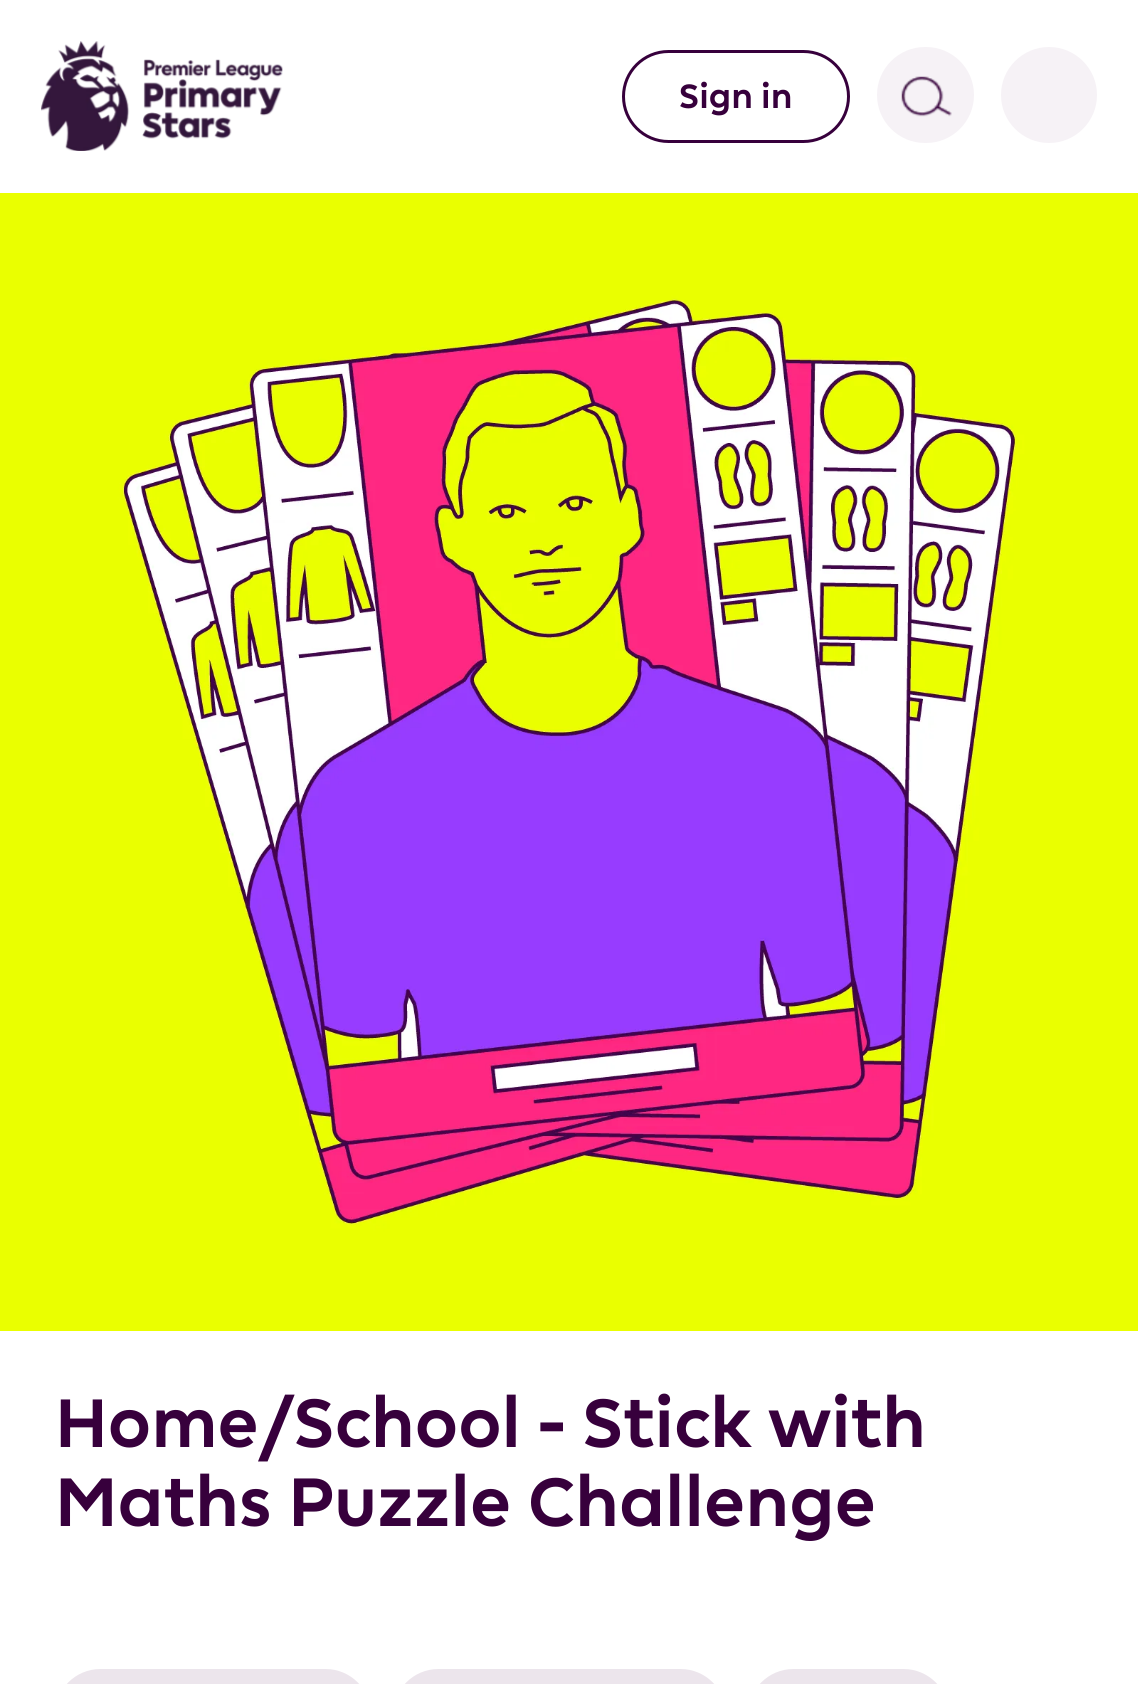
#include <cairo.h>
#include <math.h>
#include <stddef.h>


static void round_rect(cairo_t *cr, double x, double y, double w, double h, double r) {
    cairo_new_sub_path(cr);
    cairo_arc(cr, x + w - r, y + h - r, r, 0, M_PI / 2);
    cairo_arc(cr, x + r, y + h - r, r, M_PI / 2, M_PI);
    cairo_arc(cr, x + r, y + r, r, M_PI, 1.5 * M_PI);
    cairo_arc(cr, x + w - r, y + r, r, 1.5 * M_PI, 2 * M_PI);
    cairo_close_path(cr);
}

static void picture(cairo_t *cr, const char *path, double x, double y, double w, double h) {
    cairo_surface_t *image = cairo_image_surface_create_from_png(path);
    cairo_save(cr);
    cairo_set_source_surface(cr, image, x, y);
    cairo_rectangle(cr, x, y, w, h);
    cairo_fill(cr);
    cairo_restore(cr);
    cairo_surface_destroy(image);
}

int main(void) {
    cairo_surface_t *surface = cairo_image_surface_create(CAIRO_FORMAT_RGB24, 1138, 1684);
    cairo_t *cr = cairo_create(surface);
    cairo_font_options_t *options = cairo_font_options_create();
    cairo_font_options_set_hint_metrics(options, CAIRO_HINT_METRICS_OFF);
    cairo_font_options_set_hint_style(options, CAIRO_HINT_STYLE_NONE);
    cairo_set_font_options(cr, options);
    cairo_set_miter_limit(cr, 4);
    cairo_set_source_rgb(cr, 1, 1, 1);
    cairo_paint(cr);
    picture(cr, "img1.png", 41, 41, 242, 110);
    round_rect(cr, 623.5, 51.5, 225, 90, 45);
    cairo_set_source_rgb(cr, 0.216, 0, 0.235);
    cairo_set_line_width(cr, 3);
    cairo_stroke(cr);
    cairo_select_font_face(cr, "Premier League", CAIRO_FONT_SLANT_NORMAL, CAIRO_FONT_WEIGHT_BOLD);
    cairo_set_font_size(cr, 34);
    cairo_move_to(cr, 679, 108);
    cairo_show_text(cr, "Sign in");
    cairo_set_source_rgb(cr, 0.961, 0.949, 0.961);
    round_rect(cr, 877, 47, 97, 96, 48);
    cairo_fill(cr);
    picture(cr, "img2.png", 901, 76, 51, 41);
    cairo_arc(cr, 1049, 95, 48, 0, 2 * M_PI);
    cairo_fill(cr);
    picture(cr, "img3.png", 0, 193, 1138, 1138);
    cairo_set_font_size(cr, 68.9);
    cairo_set_source_rgb(cr, 0.216, 0, 0.235);
    cairo_move_to(cr, 55, 1447);
    cairo_show_text(cr, "Home/School - Stick with");
    cairo_move_to(cr, 55, 1526);
    cairo_show_text(cr, "Maths Puzzle Challenge");
    cairo_set_source_rgb(cr, 0.922, 0.898, 0.922);
    round_rect(cr, 55, 1669, 316, 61, 45.5);
    cairo_fill(cr);
    round_rect(cr, 393, 1669, 333, 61, 45.5);
    cairo_fill(cr);
    round_rect(cr, 748, 1669, 201, 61, 45.5);
    cairo_fill(cr);
    cairo_surface_write_to_png(surface, "page.png");
    cairo_font_options_destroy(options);
    cairo_destroy(cr);
    cairo_surface_destroy(surface);
    return 0;
}
